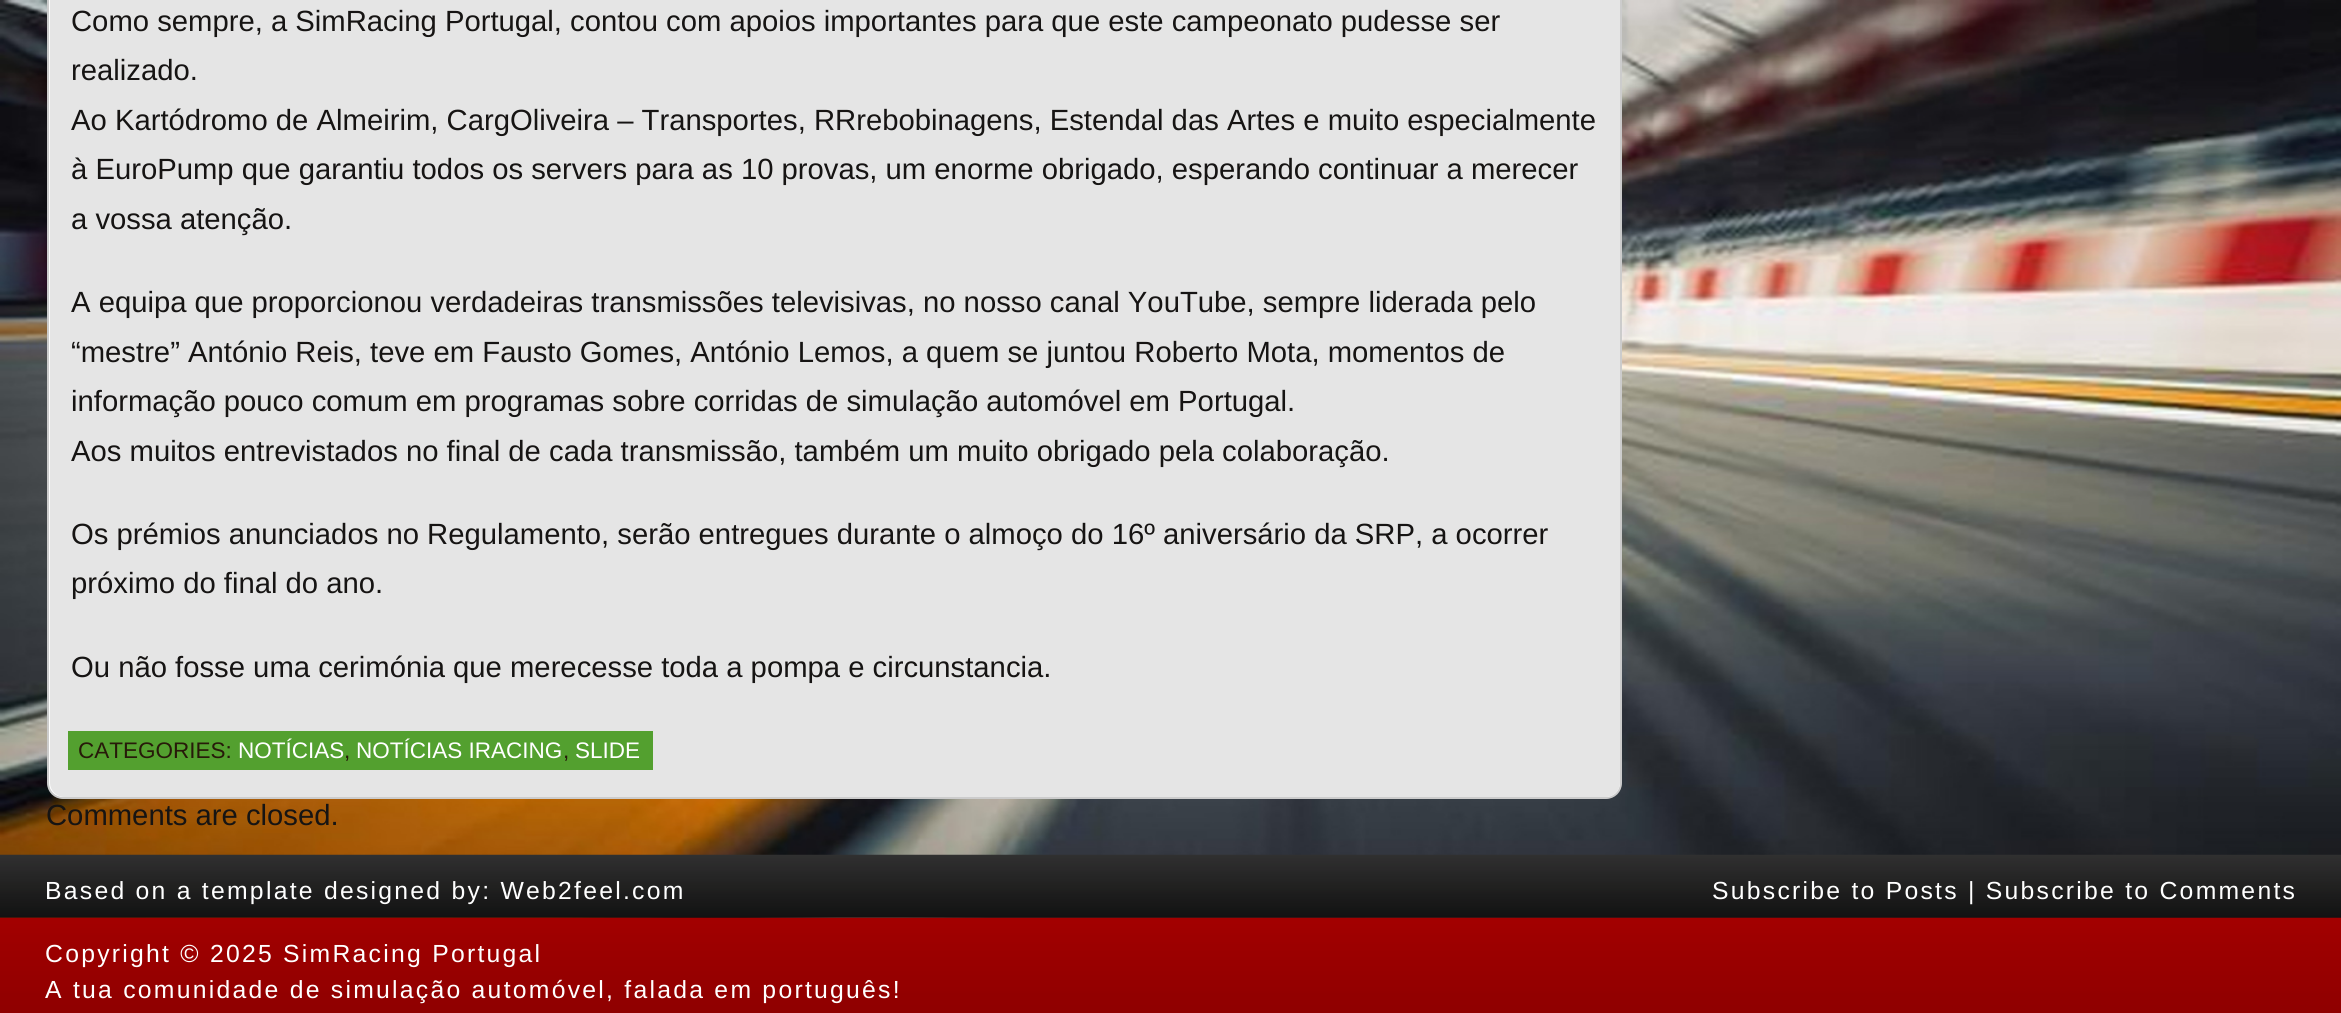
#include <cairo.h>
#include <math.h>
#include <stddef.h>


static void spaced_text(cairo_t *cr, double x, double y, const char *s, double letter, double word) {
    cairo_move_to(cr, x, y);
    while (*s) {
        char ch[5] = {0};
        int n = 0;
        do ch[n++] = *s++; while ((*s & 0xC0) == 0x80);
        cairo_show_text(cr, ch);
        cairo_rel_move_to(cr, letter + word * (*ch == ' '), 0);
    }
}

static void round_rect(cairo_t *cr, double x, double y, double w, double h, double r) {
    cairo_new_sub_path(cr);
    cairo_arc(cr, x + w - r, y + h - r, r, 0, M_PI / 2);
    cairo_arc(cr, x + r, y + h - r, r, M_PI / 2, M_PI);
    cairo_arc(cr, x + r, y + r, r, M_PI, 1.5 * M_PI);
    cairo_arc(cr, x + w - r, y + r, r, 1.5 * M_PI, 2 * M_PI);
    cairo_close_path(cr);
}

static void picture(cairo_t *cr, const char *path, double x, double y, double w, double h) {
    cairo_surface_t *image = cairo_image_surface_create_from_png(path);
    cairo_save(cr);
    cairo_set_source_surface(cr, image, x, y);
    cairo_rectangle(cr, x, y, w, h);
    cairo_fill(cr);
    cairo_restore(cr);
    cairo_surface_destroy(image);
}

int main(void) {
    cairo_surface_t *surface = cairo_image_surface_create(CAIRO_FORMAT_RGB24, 2341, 1013);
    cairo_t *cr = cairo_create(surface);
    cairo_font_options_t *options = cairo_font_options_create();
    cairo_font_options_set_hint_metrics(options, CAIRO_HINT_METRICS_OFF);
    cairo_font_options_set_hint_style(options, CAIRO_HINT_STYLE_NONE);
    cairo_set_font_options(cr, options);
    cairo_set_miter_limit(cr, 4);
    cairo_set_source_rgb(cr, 1, 1, 1);
    cairo_paint(cr);
    picture(cr, "img3.png", 0, 0, 2341, 918);
    cairo_set_source_rgb(cr, 1, 1, 1);
    round_rect(cr, 48, -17, 1573, 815, 15);
    cairo_fill_preserve(cr);
    cairo_set_source_rgb(cr, 0.8, 0.8, 0.8);
    cairo_stroke(cr);
    cairo_set_source_rgb(cr, 0.898, 0.898, 0.898);
    cairo_new_path(cr);
    cairo_move_to(cr, 50, -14);
    cairo_line_to(cr, 1620, -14);
    cairo_line_to(cr, 1620, 783);
    cairo_curve_to(cr, 1620, 790.5, 1613.5, 797, 1606, 797);
    cairo_line_to(cr, 64, 797);
    cairo_curve_to(cr, 56.5, 797, 50, 790.5, 50, 783);
    cairo_close_path(cr);
    cairo_fill(cr);
    cairo_select_font_face(cr, "Liberation Sans", CAIRO_FONT_SLANT_NORMAL, CAIRO_FONT_WEIGHT_NORMAL);
    cairo_set_font_size(cr, 29.25);
    cairo_set_source_rgb(cr, 0.086, 0.082, 0.078);
    cairo_move_to(cr, 71, 31);
    cairo_show_text(cr, "Como sempre, a SimRacing Portugal, contou com apoios importantes para que este campeonato pudesse ser");
    cairo_move_to(cr, 71, 80);
    cairo_show_text(cr, "realizado.");
    cairo_move_to(cr, 71, 130);
    cairo_show_text(cr, "Ao Kartódromo de Almeirim, CargOliveira – Transportes, RRrebobinagens, Estendal das Artes e muito especialmente");
    cairo_move_to(cr, 71, 179);
    cairo_show_text(cr, "à EuroPump que garantiu todos os servers para as 10 provas, um enorme obrigado, esperando continuar a merecer");
    cairo_move_to(cr, 71, 229);
    cairo_show_text(cr, "a vossa atenção.");
    cairo_move_to(cr, 71, 312);
    cairo_show_text(cr, "A equipa que proporcionou verdadeiras transmissões televisivas, no nosso canal YouTube, sempre liderada pelo");
    cairo_move_to(cr, 71, 362);
    cairo_show_text(cr, "“mestre” António Reis, teve em Fausto Gomes, António Lemos, a quem se juntou Roberto Mota, momentos de");
    cairo_move_to(cr, 71, 411);
    cairo_show_text(cr, "informação pouco comum em programas sobre corridas de simulação automóvel em Portugal.");
    cairo_move_to(cr, 71, 461);
    cairo_show_text(cr, "Aos muitos entrevistados no final de cada transmissão, também um muito obrigado pela colaboração.");
    cairo_move_to(cr, 71, 544);
    cairo_show_text(cr, "Os prémios anunciados no Regulamento, serão entregues durante o almoço do 16º aniversário da SRP, a ocorrer");
    cairo_move_to(cr, 71, 593);
    cairo_show_text(cr, "próximo do final do ano.");
    cairo_move_to(cr, 71, 677);
    cairo_show_text(cr, "Ou não fosse uma cerimónia que merecesse toda a pompa e circunstancia.");
    cairo_set_source_rgb(cr, 0.325, 0.627, 0.184);
    cairo_rectangle(cr, 68, 731, 585, 39);
    cairo_fill(cr);
    cairo_set_font_size(cr, 22.5);
    cairo_set_source_rgb(cr, 0.153, 0.102, 0.039);
    cairo_move_to(cr, 78, 758);
    cairo_show_text(cr, "CATEGORIES:");
    cairo_set_source_rgb(cr, 1, 1, 1);
    cairo_move_to(cr, 238, 758);
    cairo_show_text(cr, "NOTÍCIAS");
    cairo_set_source_rgb(cr, 0.153, 0.102, 0.039);
    cairo_move_to(cr, 344, 758);
    cairo_show_text(cr, ",");
    cairo_set_source_rgb(cr, 1, 1, 1);
    cairo_move_to(cr, 356, 758);
    cairo_show_text(cr, "NOTÍCIAS IRACING");
    cairo_set_source_rgb(cr, 0.153, 0.102, 0.039);
    cairo_move_to(cr, 563, 758);
    cairo_show_text(cr, ",");
    cairo_set_source_rgb(cr, 1, 1, 1);
    cairo_move_to(cr, 575, 758);
    cairo_show_text(cr, "SLIDE");
    cairo_set_font_size(cr, 29.25);
    cairo_set_source_rgb(cr, 0.086, 0.082, 0.078);
    cairo_move_to(cr, 46, 825);
    cairo_show_text(cr, "Comments are closed.");
    picture(cr, "img1.png", 0, 854, 2341, 64);
    cairo_set_font_size(cr, 24.75);
    cairo_set_source_rgb(cr, 1, 1, 1);
    spaced_text(cr, 45, 899, "Based on a template designed by: Web2feel.com", 2.25, 0);
    spaced_text(cr, 1712, 899, "Subscribe to Posts | Subscribe to Comments", 2.25, 0);
    picture(cr, "img2.png", 0, 917, 2341, 96);
    spaced_text(cr, 45, 962, "Copyright © 2025 SimRacing Portugal", 2.25, 0);
    spaced_text(cr, 45, 998, "A tua comunidade de simulação automóvel, falada em português!", 2.25, 0);
    cairo_surface_write_to_png(surface, "page.png");
    cairo_font_options_destroy(options);
    cairo_destroy(cr);
    cairo_surface_destroy(surface);
    return 0;
}
